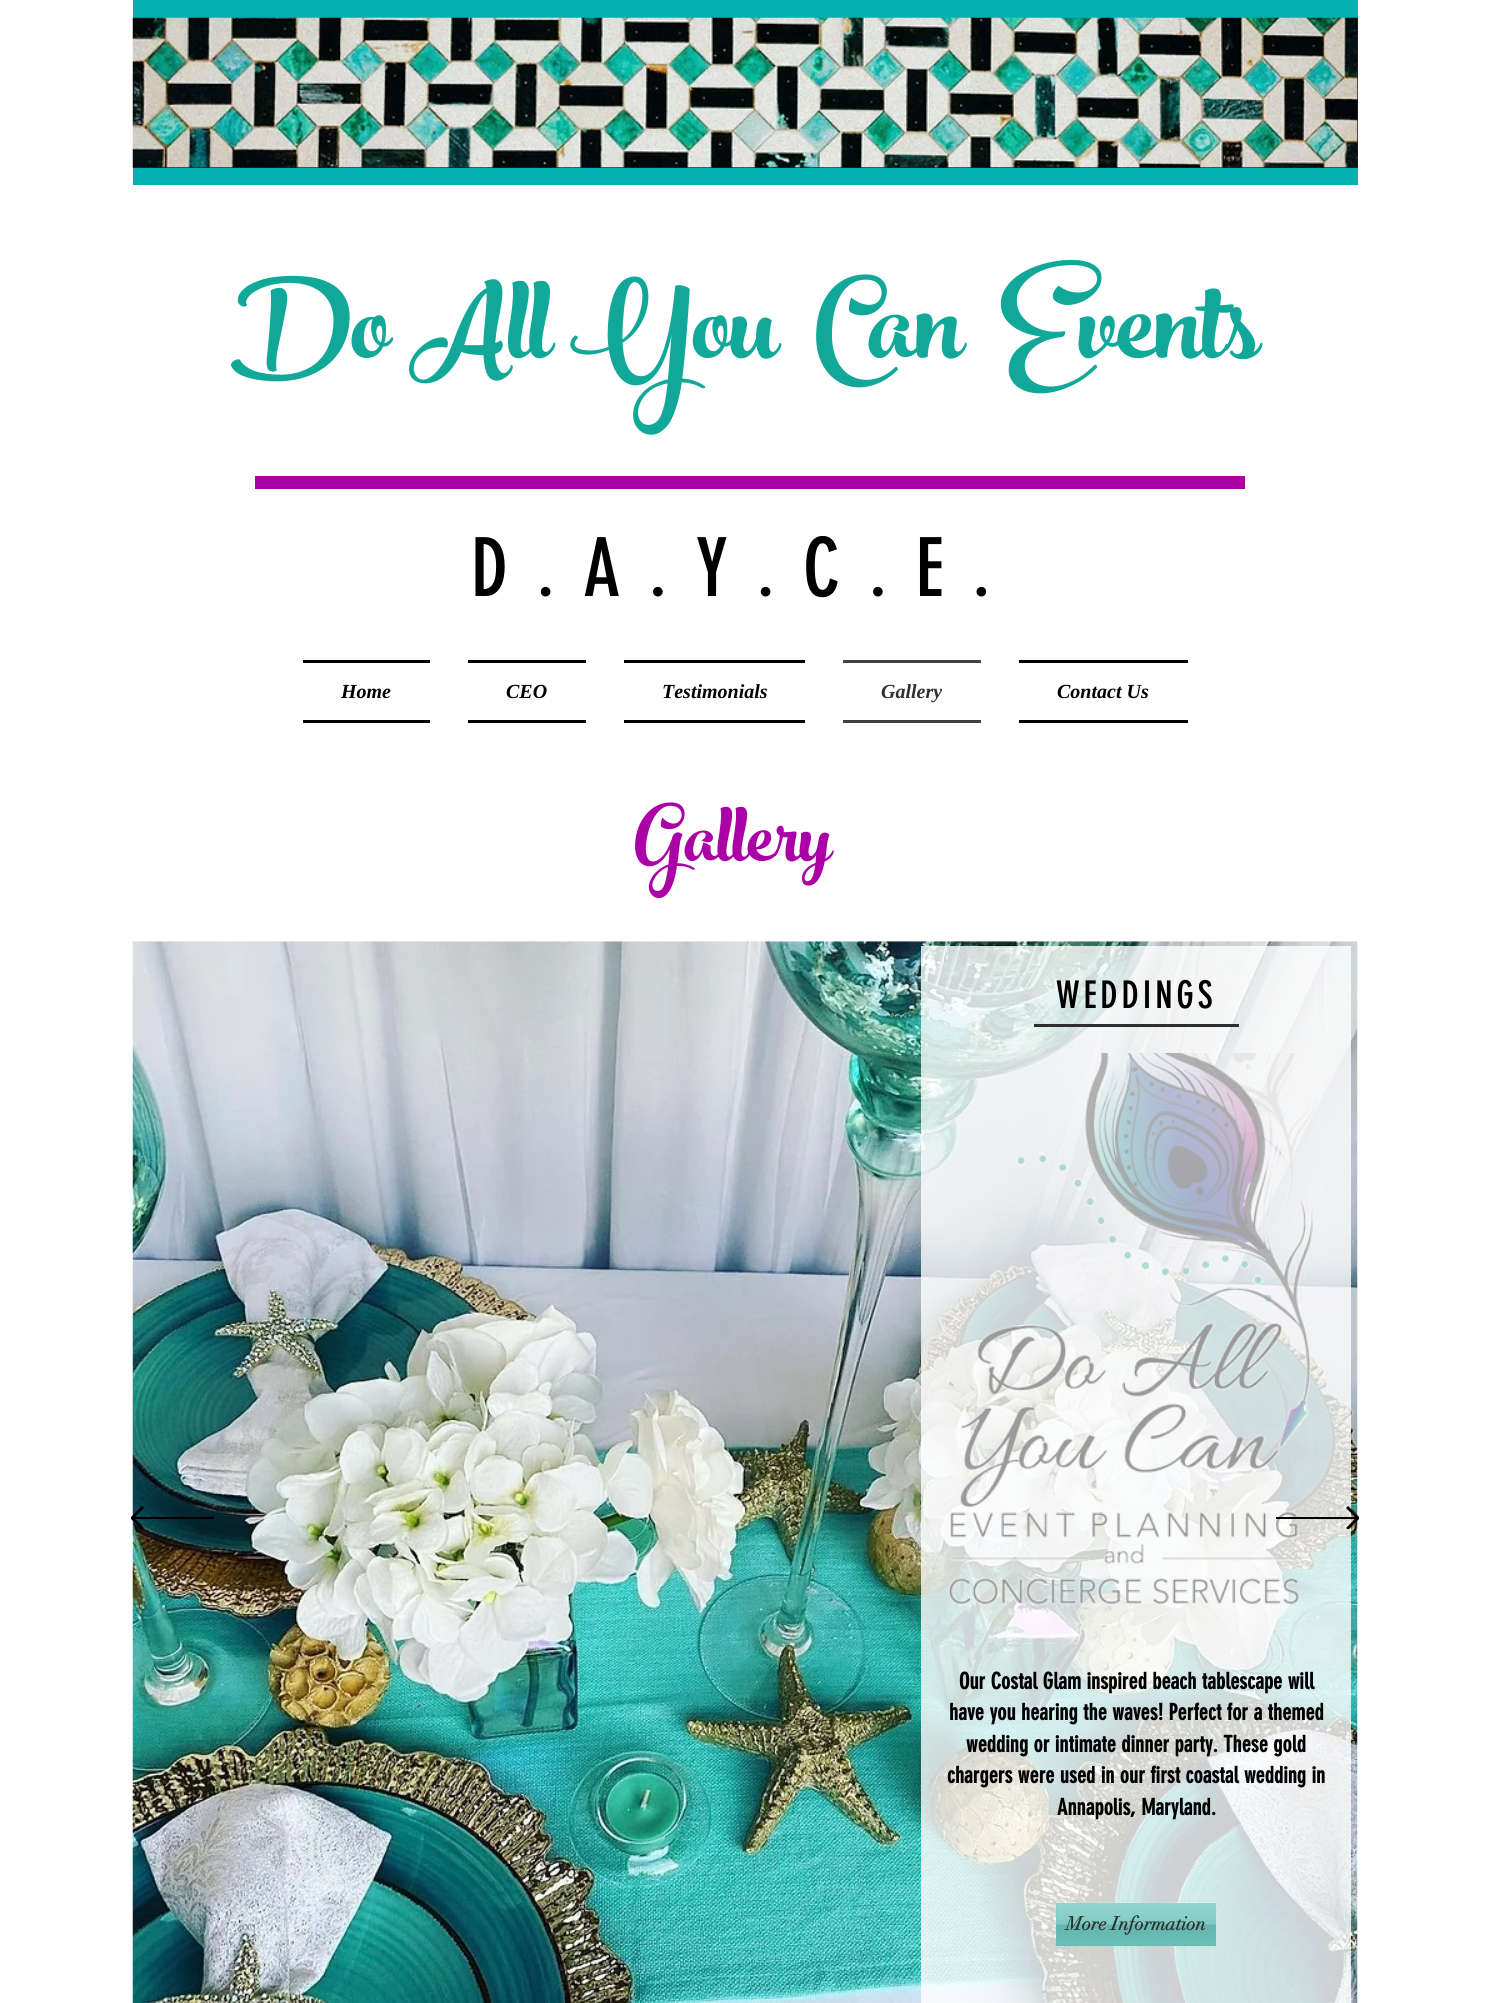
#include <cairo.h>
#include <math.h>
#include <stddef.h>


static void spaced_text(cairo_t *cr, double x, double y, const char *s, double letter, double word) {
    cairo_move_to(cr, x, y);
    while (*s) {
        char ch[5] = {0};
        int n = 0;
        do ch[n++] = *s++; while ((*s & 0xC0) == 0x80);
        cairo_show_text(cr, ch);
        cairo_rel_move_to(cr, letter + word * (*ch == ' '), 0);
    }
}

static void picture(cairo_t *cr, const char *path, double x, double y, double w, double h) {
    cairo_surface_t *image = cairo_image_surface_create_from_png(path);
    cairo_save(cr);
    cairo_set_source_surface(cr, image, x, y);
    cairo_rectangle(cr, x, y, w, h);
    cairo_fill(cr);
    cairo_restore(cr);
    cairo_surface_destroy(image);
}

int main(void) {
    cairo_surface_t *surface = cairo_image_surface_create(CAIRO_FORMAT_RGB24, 1490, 2003);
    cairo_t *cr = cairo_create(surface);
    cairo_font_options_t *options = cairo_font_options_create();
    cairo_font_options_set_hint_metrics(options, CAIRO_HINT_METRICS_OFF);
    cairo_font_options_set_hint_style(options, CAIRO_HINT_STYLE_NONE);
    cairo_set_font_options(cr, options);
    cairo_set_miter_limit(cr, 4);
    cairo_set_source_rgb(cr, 1, 1, 1);
    cairo_paint(cr);
    cairo_set_source_rgb(cr, 0.004, 0.694, 0.686);
    cairo_rectangle(cr, 133, 0, 1225, 185);
    cairo_fill(cr);
    cairo_set_source_rgb(cr, 0.141, 0.137, 0.137);
    cairo_rectangle(cr, 133, 18, 1225, 150);
    cairo_fill(cr);
    picture(cr, "img1.png", 132, 17, 1226, 151);
    cairo_select_font_face(cr, "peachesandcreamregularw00", CAIRO_FONT_SLANT_NORMAL, CAIRO_FONT_WEIGHT_NORMAL);
    cairo_set_font_size(cr, 163.75);
    cairo_set_source_rgb(cr, 0.067, 0.659, 0.6);
    cairo_move_to(cr, 231, 358);
    cairo_show_text(cr, "Do All You  Can  Events");
    cairo_set_source_rgb(cr, 0.667, 0, 0.647);
    cairo_rectangle(cr, 255, 476, 990, 13);
    cairo_fill(cr);
    cairo_select_font_face(cr, "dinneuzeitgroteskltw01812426", CAIRO_FONT_SLANT_NORMAL, CAIRO_FONT_WEIGHT_NORMAL);
    cairo_set_font_size(cr, 80);
    cairo_set_source_rgb(cr, 0, 0, 0);
    spaced_text(cr, 471, 596, "D.A.Y.C.E.", 28, 0);
    cairo_rectangle(cr, 303, 660, 127, 3);
    cairo_fill(cr);
    cairo_rectangle(cr, 303, 720, 127, 3);
    cairo_fill(cr);
    cairo_select_font_face(cr, "Liberation Serif", CAIRO_FONT_SLANT_ITALIC, CAIRO_FONT_WEIGHT_BOLD);
    cairo_set_font_size(cr, 20);
    cairo_move_to(cr, 341, 698);
    cairo_show_text(cr, "Home");
    cairo_rectangle(cr, 468, 660, 118, 3);
    cairo_fill(cr);
    cairo_rectangle(cr, 468, 720, 118, 3);
    cairo_fill(cr);
    cairo_move_to(cr, 506, 698);
    cairo_show_text(cr, "CEO");
    cairo_rectangle(cr, 624, 660, 181, 3);
    cairo_fill(cr);
    cairo_rectangle(cr, 624, 720, 181, 3);
    cairo_fill(cr);
    cairo_move_to(cr, 662, 698);
    cairo_show_text(cr, "Testimonials");
    cairo_set_source_rgb(cr, 0.255, 0.255, 0.255);
    cairo_rectangle(cr, 843, 660, 138, 3);
    cairo_fill(cr);
    cairo_rectangle(cr, 843, 720, 138, 3);
    cairo_fill(cr);
    cairo_set_source_rgb(cr, 0.188, 0.188, 0.188);
    cairo_move_to(cr, 881, 698);
    cairo_show_text(cr, "Gallery");
    cairo_set_source_rgb(cr, 0, 0, 0);
    cairo_rectangle(cr, 1019, 660, 169, 3);
    cairo_fill(cr);
    cairo_rectangle(cr, 1019, 720, 169, 3);
    cairo_fill(cr);
    cairo_move_to(cr, 1057, 698);
    cairo_show_text(cr, "Contact Us");
    cairo_select_font_face(cr, "peachesandcreamregularw00", CAIRO_FONT_SLANT_NORMAL, CAIRO_FONT_WEIGHT_NORMAL);
    cairo_set_font_size(cr, 115);
    cairo_set_source_rgb(cr, 0.667, 0, 0.647);
    cairo_move_to(cr, 635, 861);
    cairo_show_text(cr, "Gallery");
    picture(cr, "img2.png", 132, 941, 1226, 1062);
    cairo_save(cr);
    cairo_rectangle(cr, 131, 1506, 83, 23);
    cairo_clip(cr);
    cairo_set_source_rgb(cr, 0, 0, 0);
    cairo_new_path(cr);
    cairo_move_to(cr, 142, 1506);
    cairo_line_to(cr, 144, 1508);
    cairo_line_to(cr, 135, 1517);
    cairo_line_to(cr, 214, 1517);
    cairo_line_to(cr, 214, 1519);
    cairo_line_to(cr, 135, 1519);
    cairo_line_to(cr, 144, 1528);
    cairo_line_to(cr, 142, 1530);
    cairo_line_to(cr, 130, 1518);
    cairo_close_path(cr);
    cairo_fill(cr);
    cairo_restore(cr);
    cairo_set_source_rgba(cr, 1, 1, 1, 0.8);
    cairo_rectangle(cr, 921, 946, 430, 1057);
    cairo_fill(cr);
    cairo_select_font_face(cr, "dinneuzeitgroteskltw01812426", CAIRO_FONT_SLANT_NORMAL, CAIRO_FONT_WEIGHT_NORMAL);
    cairo_set_font_size(cr, 37.5);
    cairo_set_source_rgb(cr, 0, 0, 0);
    spaced_text(cr, 1056, 1008, "WEDDINGS", 3.75, 0);
    cairo_set_source_rgb(cr, 0.184, 0.18, 0.18);
    cairo_rectangle(cr, 1034, 1024, 205, 3);
    cairo_fill(cr);
    picture(cr, "img3.png", 947, 1053, 369, 552);
    cairo_select_font_face(cr, "dinneuzeitgroteskltw01812426", CAIRO_FONT_SLANT_NORMAL, CAIRO_FONT_WEIGHT_BOLD);
    cairo_set_font_size(cr, 22.5);
    cairo_set_source_rgb(cr, 0, 0, 0);
    cairo_move_to(cr, 959, 1689);
    cairo_show_text(cr, "Our Costal Glam inspired beach tablescape will");
    cairo_move_to(cr, 949, 1720);
    cairo_show_text(cr, "have you hearing the waves! Perfect for a themed");
    cairo_move_to(cr, 966, 1752);
    cairo_show_text(cr, "wedding or intimate dinner party. These gold");
    cairo_move_to(cr, 947, 1783);
    cairo_show_text(cr, "chargers were used in our first coastal wedding in");
    cairo_move_to(cr, 1057, 1815);
    cairo_show_text(cr, "Annapolis, Maryland.");
    cairo_set_source_rgb(cr, 0.424, 0.773, 0.737);
    cairo_rectangle(cr, 1056, 1903, 160, 43);
    cairo_fill(cr);
    picture(cr, "img4.png", 1056, 1902, 160, 44);
    cairo_select_font_face(cr, "didot", CAIRO_FONT_SLANT_NORMAL, CAIRO_FONT_WEIGHT_BOLD);
    cairo_set_font_size(cr, 18.75);
    cairo_set_source_rgb(cr, 0.188, 0.188, 0.188);
    cairo_move_to(cr, 1066, 1930);
    cairo_show_text(cr, "More Information");
    cairo_save(cr);
    cairo_rectangle(cr, 1276, 1506, 83, 23);
    cairo_clip(cr);
    cairo_set_source_rgb(cr, 0, 0, 0);
    cairo_new_path(cr);
    cairo_move_to(cr, 1348, 1506);
    cairo_line_to(cr, 1346, 1508);
    cairo_line_to(cr, 1355, 1517);
    cairo_line_to(cr, 1276, 1517);
    cairo_line_to(cr, 1276, 1519);
    cairo_line_to(cr, 1355, 1519);
    cairo_line_to(cr, 1346, 1528);
    cairo_line_to(cr, 1348, 1530);
    cairo_line_to(cr, 1360, 1518);
    cairo_close_path(cr);
    cairo_fill(cr);
    cairo_restore(cr);
    cairo_surface_write_to_png(surface, "page.png");
    cairo_font_options_destroy(options);
    cairo_destroy(cr);
    cairo_surface_destroy(surface);
    return 0;
}
